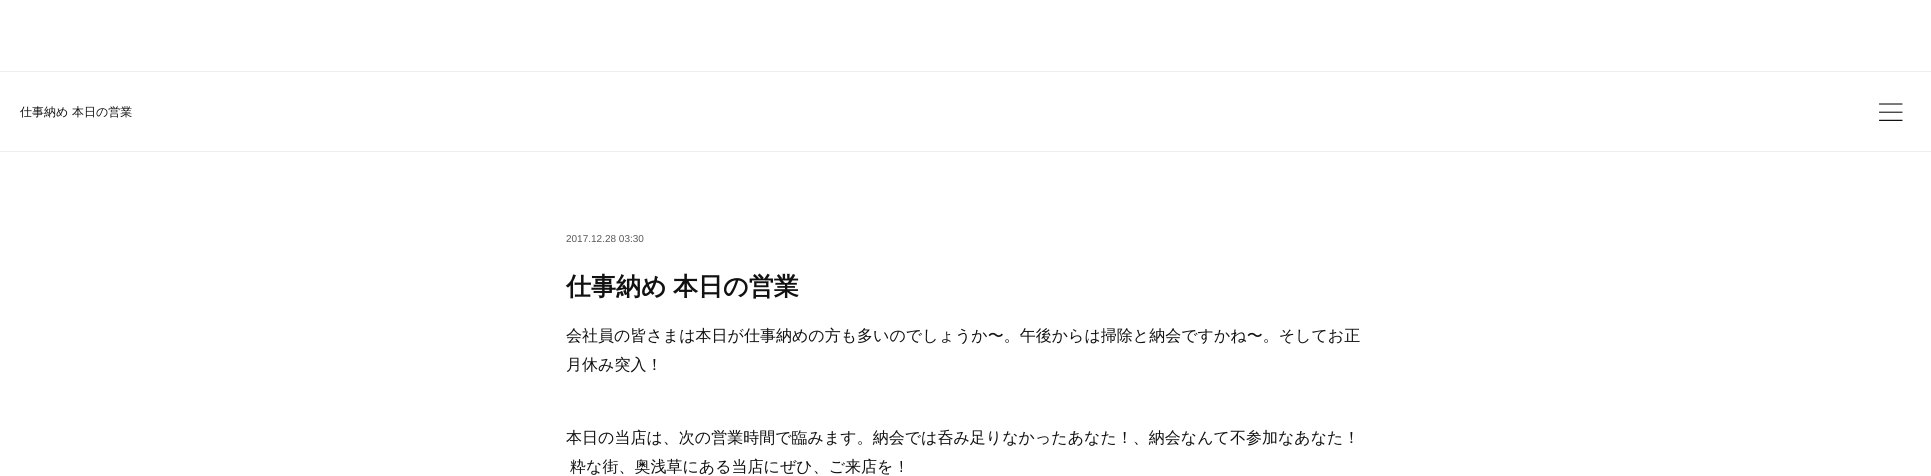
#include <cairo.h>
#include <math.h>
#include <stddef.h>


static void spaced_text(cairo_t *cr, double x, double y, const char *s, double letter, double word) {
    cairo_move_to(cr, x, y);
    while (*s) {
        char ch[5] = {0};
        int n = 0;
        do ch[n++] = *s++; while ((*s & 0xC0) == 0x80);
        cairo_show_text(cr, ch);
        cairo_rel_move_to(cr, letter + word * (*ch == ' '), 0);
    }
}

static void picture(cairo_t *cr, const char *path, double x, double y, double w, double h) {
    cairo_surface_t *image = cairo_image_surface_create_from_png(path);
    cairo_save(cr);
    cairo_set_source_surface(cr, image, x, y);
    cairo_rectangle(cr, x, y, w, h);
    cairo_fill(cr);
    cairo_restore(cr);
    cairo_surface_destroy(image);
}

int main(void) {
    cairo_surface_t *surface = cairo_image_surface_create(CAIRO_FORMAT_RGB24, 1931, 476);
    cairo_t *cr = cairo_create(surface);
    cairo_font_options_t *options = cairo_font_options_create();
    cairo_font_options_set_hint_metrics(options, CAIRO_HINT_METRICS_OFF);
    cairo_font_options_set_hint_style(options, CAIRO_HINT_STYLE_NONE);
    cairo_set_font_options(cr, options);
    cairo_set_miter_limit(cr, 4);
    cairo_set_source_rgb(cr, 1, 1, 1);
    cairo_paint(cr);
    cairo_set_source_rgb(cr, 0.933, 0.933, 0.933);
    cairo_rectangle(cr, 0, 71, 1931, 1);
    cairo_fill(cr);
    cairo_rectangle(cr, 0, 151, 1931, 1);
    cairo_fill(cr);
    cairo_select_font_face(cr, "WenQuanYi Zen Hei Medium", CAIRO_FONT_SLANT_NORMAL, CAIRO_FONT_WEIGHT_NORMAL);
    cairo_set_font_size(cr, 12);
    cairo_set_source_rgb(cr, 0.067, 0.067, 0.067);
    cairo_move_to(cr, 20, 116);
    cairo_show_text(cr, "仕事納め 本日の営業");
    picture(cr, "img1.png", 1879, 103, 24, 18);
    cairo_select_font_face(cr, "Liberation Sans", CAIRO_FONT_SLANT_NORMAL, CAIRO_FONT_WEIGHT_NORMAL);
    cairo_set_font_size(cr, 10);
    cairo_set_source_rgb(cr, 0.345, 0.345, 0.345);
    cairo_move_to(cr, 566, 242);
    cairo_show_text(cr, "2017.12.28 03:30");
    cairo_select_font_face(cr, "WenQuanYi Zen Hei", CAIRO_FONT_SLANT_NORMAL, CAIRO_FONT_WEIGHT_BOLD);
    cairo_set_font_size(cr, 25);
    cairo_set_source_rgb(cr, 0.067, 0.067, 0.067);
    spaced_text(cr, 566, 295, "仕事納め 本日の営業", 0, -1);
    cairo_select_font_face(cr, "WenQuanYi Zen Hei Medium", CAIRO_FONT_SLANT_NORMAL, CAIRO_FONT_WEIGHT_NORMAL);
    cairo_set_font_size(cr, 16);
    cairo_move_to(cr, 566, 341);
    cairo_show_text(cr, "会社員の皆さまは本日が仕事納めの方も多いのでしょうか〜。午後からは掃除と納会ですかね〜。そしてお正");
    cairo_move_to(cr, 566, 370);
    cairo_show_text(cr, "月休み突入！");
    cairo_move_to(cr, 566, 443);
    cairo_show_text(cr, "本日の当店は、次の営業時間で臨みます。納会では呑み足りなかったあなた！、納会なんて不参加なあなた！");
    cairo_move_to(cr, 570, 472);
    cairo_show_text(cr, "粋な街、奥浅草にある当店にぜひ、ご来店を！");
    cairo_surface_write_to_png(surface, "page.png");
    cairo_font_options_destroy(options);
    cairo_destroy(cr);
    cairo_surface_destroy(surface);
    return 0;
}
